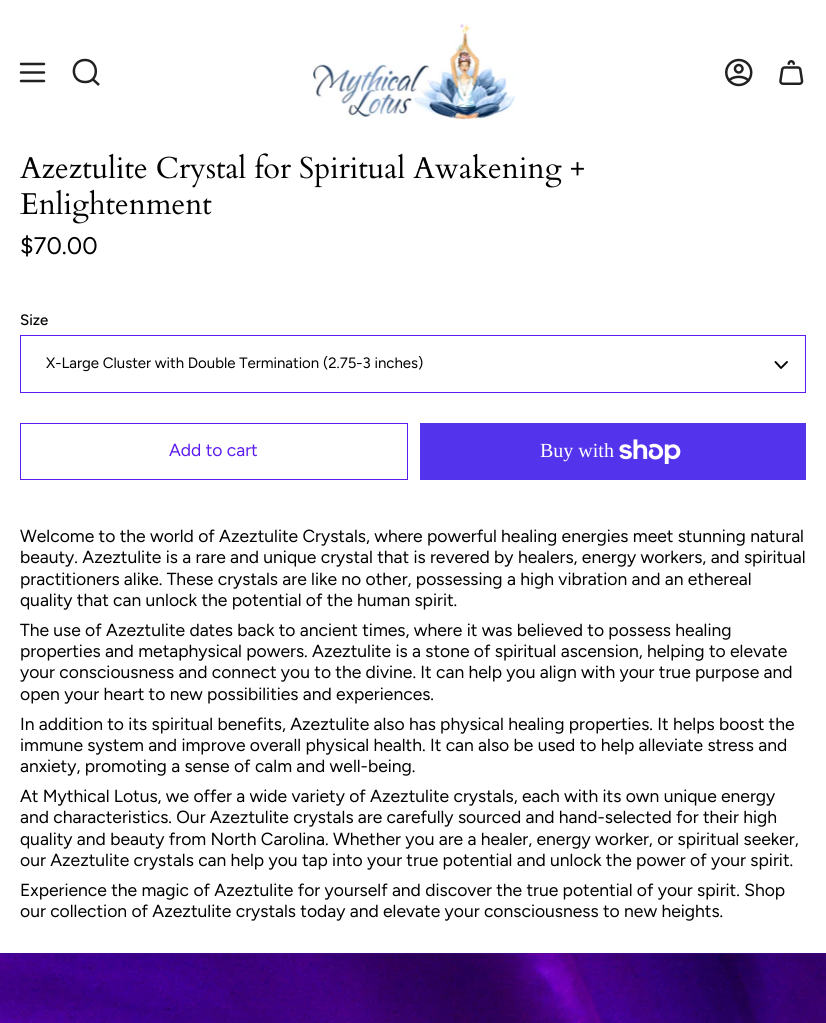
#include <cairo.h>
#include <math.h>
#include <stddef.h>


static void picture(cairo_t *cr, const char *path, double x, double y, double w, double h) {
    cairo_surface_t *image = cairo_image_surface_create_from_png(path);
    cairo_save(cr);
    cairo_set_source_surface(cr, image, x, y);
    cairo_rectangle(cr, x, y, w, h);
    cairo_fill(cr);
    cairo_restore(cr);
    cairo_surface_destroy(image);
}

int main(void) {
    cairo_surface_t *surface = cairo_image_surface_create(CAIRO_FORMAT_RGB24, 826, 1023);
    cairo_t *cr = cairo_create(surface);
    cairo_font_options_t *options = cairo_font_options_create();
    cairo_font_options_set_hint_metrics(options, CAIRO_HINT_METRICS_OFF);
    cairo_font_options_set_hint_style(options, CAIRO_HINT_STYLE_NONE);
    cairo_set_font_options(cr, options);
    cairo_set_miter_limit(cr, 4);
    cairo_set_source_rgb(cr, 1, 1, 1);
    cairo_paint(cr);
    cairo_new_path(cr);
    cairo_move_to(cr, 21, 64);
    cairo_line_to(cr, 44, 64);
    cairo_move_to(cr, 21, 72.5);
    cairo_line_to(cr, 44, 72.5);
    cairo_move_to(cr, 21, 81);
    cairo_line_to(cr, 44, 81);
    cairo_set_source_rgb(cr, 0.129, 0.129, 0.129);
    cairo_set_line_width(cr, 2.5);
    cairo_set_line_cap(cr, CAIRO_LINE_CAP_ROUND);
    cairo_set_line_join(cr, CAIRO_LINE_JOIN_ROUND);
    cairo_stroke(cr);
    cairo_new_path(cr);
    cairo_move_to(cr, 85, 60);
    cairo_curve_to(cr, 99.5, 60, 99.5, 83, 84.5, 82);
    cairo_curve_to(cr, 70, 81.5, 70.5, 60, 85, 60);
    cairo_close_path(cr);
    cairo_move_to(cr, 92.5, 79);
    cairo_line_to(cr, 99, 85);
    cairo_set_line_cap(cr, CAIRO_LINE_CAP_BUTT);
    cairo_set_line_join(cr, CAIRO_LINE_JOIN_MITER);
    cairo_stroke(cr);
    picture(cr, "img1.png", 311, 23, 205, 98);
    picture(cr, "img2.png", 725, 58, 28, 29);
    picture(cr, "img3.png", 779, 60, 25, 25);
    cairo_select_font_face(cr, "Cardo", CAIRO_FONT_SLANT_NORMAL, CAIRO_FONT_WEIGHT_NORMAL);
    cairo_set_font_size(cr, 30.2);
    cairo_set_source_rgb(cr, 0, 0, 0);
    cairo_move_to(cr, 20, 178);
    cairo_show_text(cr, "Azeztulite Crystal for Spiritual Awakening +");
    cairo_move_to(cr, 20, 214);
    cairo_show_text(cr, "Enlightenment");
    cairo_select_font_face(cr, "Figtree", CAIRO_FONT_SLANT_NORMAL, CAIRO_FONT_WEIGHT_NORMAL);
    cairo_set_font_size(cr, 24);
    cairo_move_to(cr, 20, 254);
    cairo_show_text(cr, "$70.00");
    cairo_select_font_face(cr, "Figtree Medium", CAIRO_FONT_SLANT_NORMAL, CAIRO_FONT_WEIGHT_NORMAL);
    cairo_set_font_size(cr, 15);
    cairo_move_to(cr, 20, 325);
    cairo_show_text(cr, "Size");
    cairo_rectangle(cr, 20.5, 335.5, 785, 57);
    cairo_set_source_rgb(cr, 0.357, 0.11, 0.937);
    cairo_set_line_width(cr, 1);
    cairo_stroke(cr);
    cairo_select_font_face(cr, "Figtree", CAIRO_FONT_SLANT_NORMAL, CAIRO_FONT_WEIGHT_NORMAL);
    cairo_set_source_rgb(cr, 0, 0, 0);
    cairo_move_to(cr, 46, 368);
    cairo_show_text(cr, "X-Large Cluster with Double Termination (2.75-3 inches)");
    cairo_new_path(cr);
    cairo_move_to(cr, 775.5, 362);
    cairo_line_to(cr, 781, 368);
    cairo_line_to(cr, 787, 362);
    cairo_set_line_width(cr, 1.9);
    cairo_set_line_cap(cr, CAIRO_LINE_CAP_ROUND);
    cairo_set_line_join(cr, CAIRO_LINE_JOIN_ROUND);
    cairo_stroke(cr);
    cairo_rectangle(cr, 20.5, 423.5, 387, 56);
    cairo_set_source_rgb(cr, 0.357, 0.11, 0.937);
    cairo_set_line_width(cr, 1);
    cairo_set_line_cap(cr, CAIRO_LINE_CAP_BUTT);
    cairo_set_line_join(cr, CAIRO_LINE_JOIN_MITER);
    cairo_stroke(cr);
    cairo_set_font_size(cr, 17.5);
    cairo_move_to(cr, 169, 456);
    cairo_show_text(cr, "Add to cart");
    cairo_set_source_rgb(cr, 0.329, 0.2, 0.922);
    cairo_rectangle(cr, 420, 423, 386, 57);
    cairo_fill(cr);
    cairo_select_font_face(cr, "Liberation Serif", CAIRO_FONT_SLANT_NORMAL, CAIRO_FONT_WEIGHT_NORMAL);
    cairo_set_font_size(cr, 20);
    cairo_set_source_rgb(cr, 1, 1, 1);
    cairo_move_to(cr, 540, 457);
    cairo_show_text(cr, "Buy with");
    picture(cr, "img4.png", 619, 439, 62, 25);
    cairo_select_font_face(cr, "Figtree", CAIRO_FONT_SLANT_NORMAL, CAIRO_FONT_WEIGHT_NORMAL);
    cairo_set_font_size(cr, 17.5);
    cairo_set_source_rgb(cr, 0, 0, 0);
    cairo_move_to(cr, 20, 542);
    cairo_show_text(cr, "Welcome to the world of Azeztulite Crystals, where powerful healing energies meet stunning natural");
    cairo_move_to(cr, 20, 563);
    cairo_show_text(cr, "beauty. Azeztulite is a rare and unique crystal that is revered by healers, energy workers, and spiritual");
    cairo_move_to(cr, 20, 585);
    cairo_show_text(cr, "practitioners alike. These crystals are like no other, possessing a high vibration and an ethereal");
    cairo_move_to(cr, 20, 606);
    cairo_show_text(cr, "quality that can unlock the potential of the human spirit.");
    cairo_move_to(cr, 20, 636);
    cairo_show_text(cr, "The use of Azeztulite dates back to ancient times, where it was believed to possess healing");
    cairo_move_to(cr, 20, 657);
    cairo_show_text(cr, "properties and metaphysical powers. Azeztulite is a stone of spiritual ascension, helping to elevate");
    cairo_move_to(cr, 20, 678);
    cairo_show_text(cr, "your consciousness and connect you to the divine. It can help you align with your true purpose and");
    cairo_move_to(cr, 20, 700);
    cairo_show_text(cr, "open your heart to new possibilities and experiences.");
    cairo_move_to(cr, 20, 730);
    cairo_show_text(cr, "In addition to its spiritual benefits, Azeztulite also has physical healing properties. It helps boost the");
    cairo_move_to(cr, 20, 751);
    cairo_show_text(cr, "immune system and improve overall physical health. It can also be used to help alleviate stress and");
    cairo_move_to(cr, 20, 772);
    cairo_show_text(cr, "anxiety, promoting a sense of calm and well-being.");
    cairo_move_to(cr, 20, 802);
    cairo_show_text(cr, "At Mythical Lotus, we offer a wide variety of Azeztulite crystals, each with its own unique energy");
    cairo_move_to(cr, 20, 823);
    cairo_show_text(cr, "and characteristics. Our Azeztulite crystals are carefully sourced and hand-selected for their high");
    cairo_move_to(cr, 20, 845);
    cairo_show_text(cr, "quality and beauty from North Carolina. Whether you are a healer, energy worker, or spiritual seeker,");
    cairo_move_to(cr, 20, 866);
    cairo_show_text(cr, "our Azeztulite crystals can help you tap into your true potential and unlock the power of your spirit.");
    cairo_move_to(cr, 20, 896);
    cairo_show_text(cr, "Experience the magic of Azeztulite for yourself and discover the true potential of your spirit. Shop");
    cairo_move_to(cr, 20, 917);
    cairo_show_text(cr, "our collection of Azeztulite crystals today and elevate your consciousness to new heights.");
    cairo_set_source_rgb(cr, 0.29, 0.035, 0.573);
    cairo_rectangle(cr, 0, 953, 826, 1);
    cairo_fill(cr);
    picture(cr, "img5.png", 0, 953, 826, 70);
    cairo_surface_write_to_png(surface, "page.png");
    cairo_font_options_destroy(options);
    cairo_destroy(cr);
    cairo_surface_destroy(surface);
    return 0;
}
